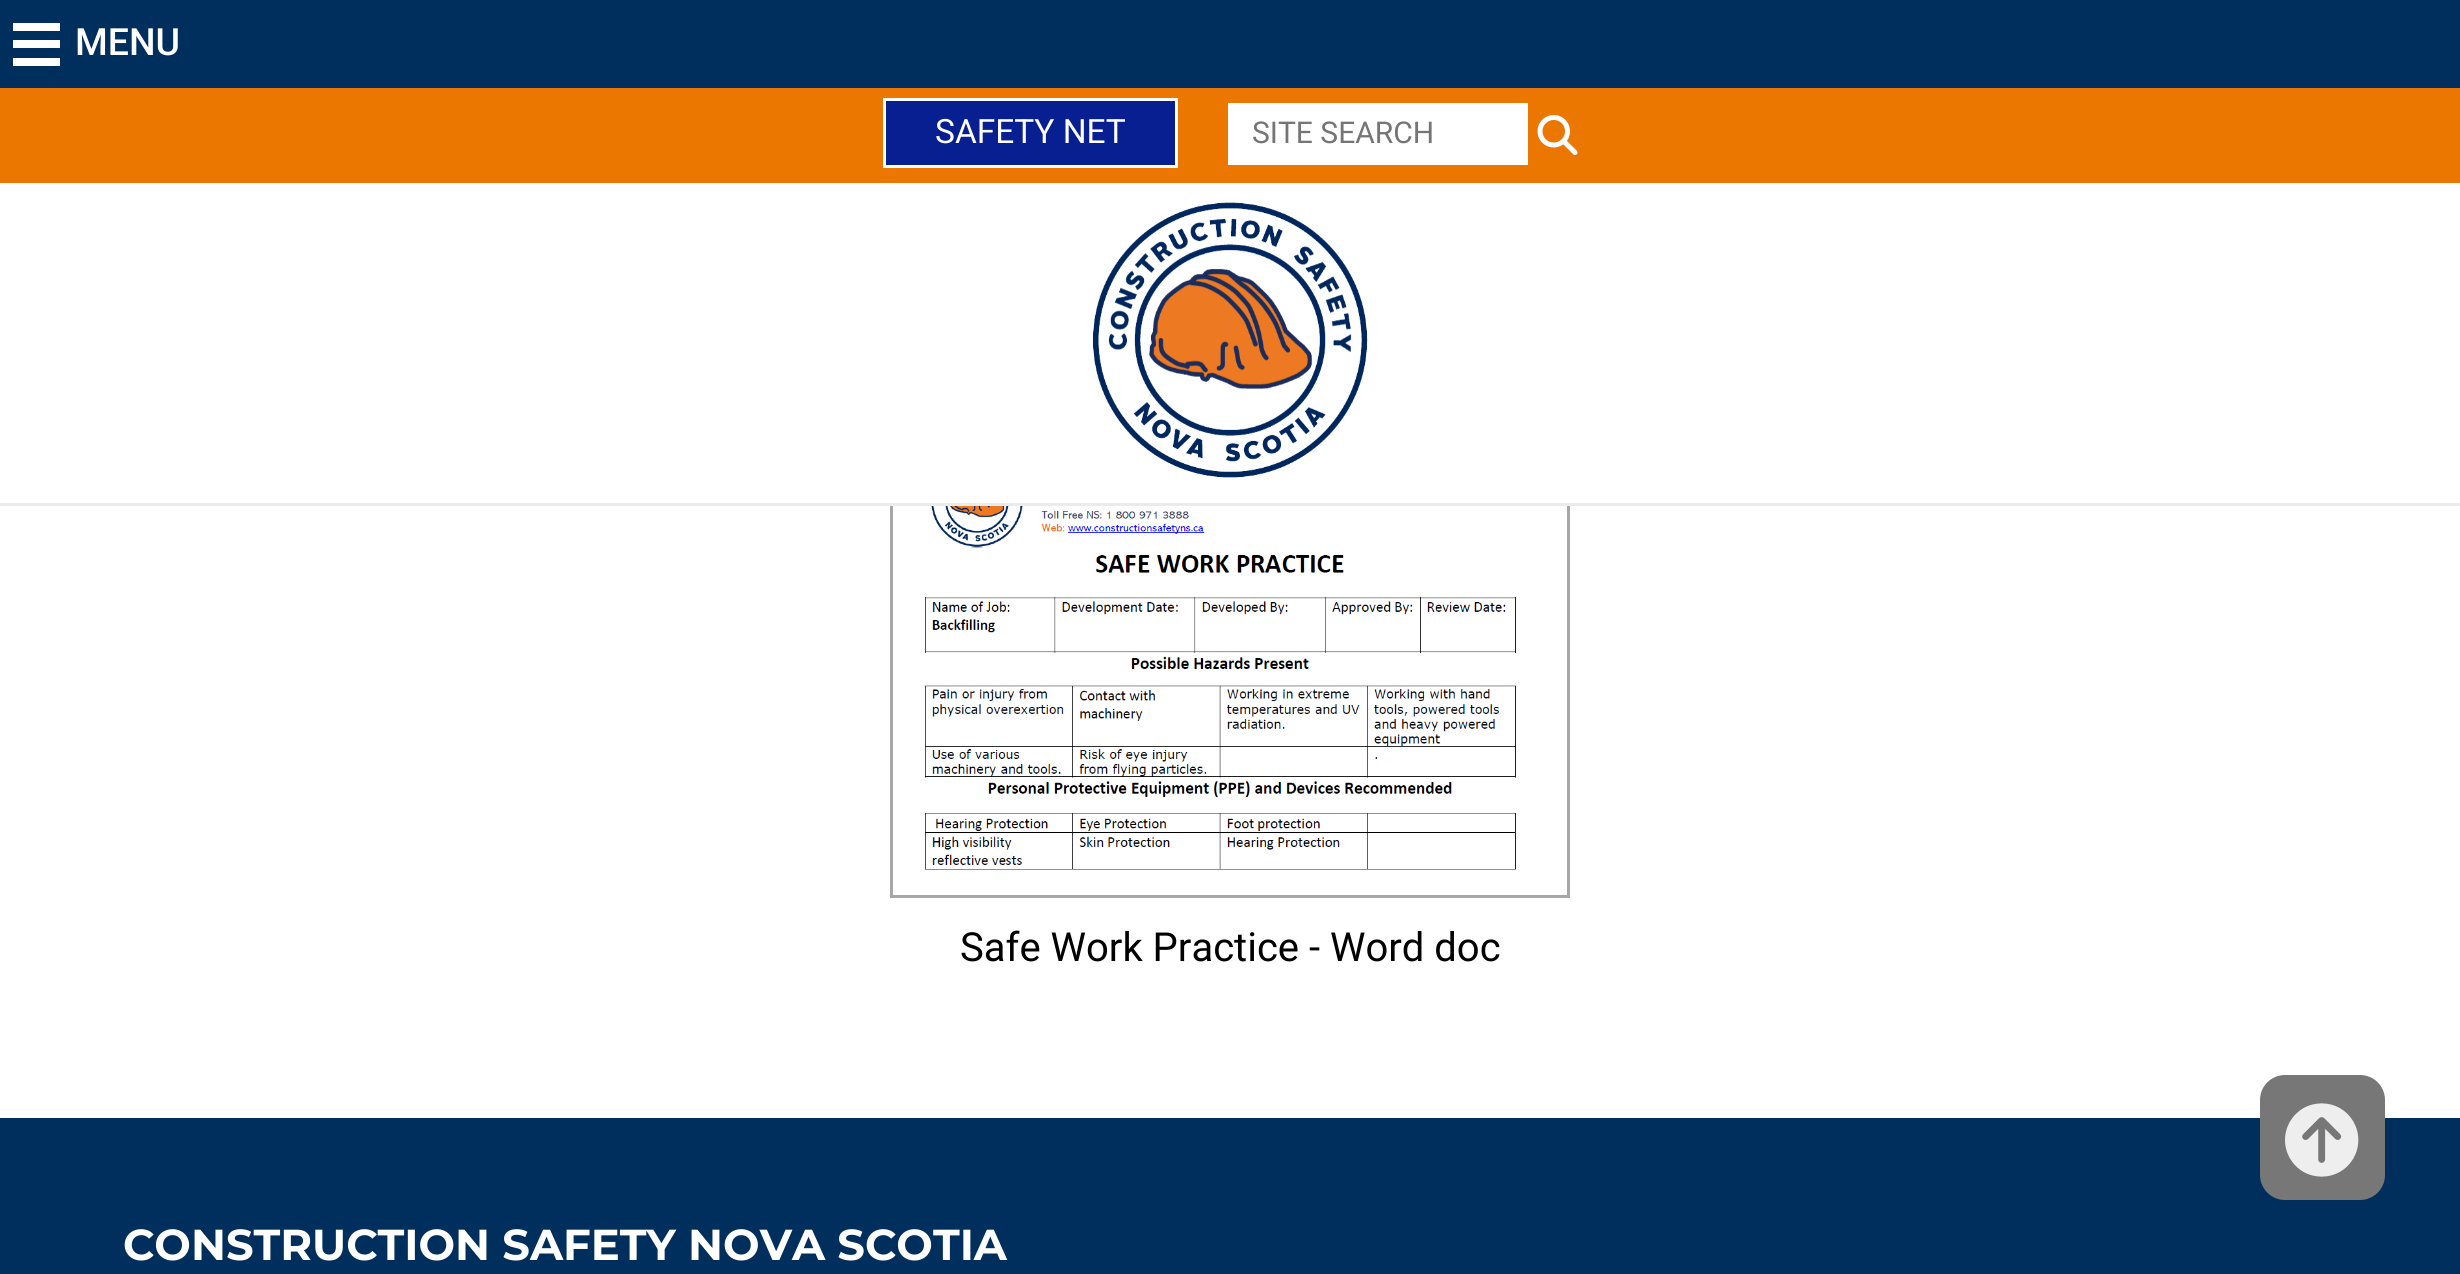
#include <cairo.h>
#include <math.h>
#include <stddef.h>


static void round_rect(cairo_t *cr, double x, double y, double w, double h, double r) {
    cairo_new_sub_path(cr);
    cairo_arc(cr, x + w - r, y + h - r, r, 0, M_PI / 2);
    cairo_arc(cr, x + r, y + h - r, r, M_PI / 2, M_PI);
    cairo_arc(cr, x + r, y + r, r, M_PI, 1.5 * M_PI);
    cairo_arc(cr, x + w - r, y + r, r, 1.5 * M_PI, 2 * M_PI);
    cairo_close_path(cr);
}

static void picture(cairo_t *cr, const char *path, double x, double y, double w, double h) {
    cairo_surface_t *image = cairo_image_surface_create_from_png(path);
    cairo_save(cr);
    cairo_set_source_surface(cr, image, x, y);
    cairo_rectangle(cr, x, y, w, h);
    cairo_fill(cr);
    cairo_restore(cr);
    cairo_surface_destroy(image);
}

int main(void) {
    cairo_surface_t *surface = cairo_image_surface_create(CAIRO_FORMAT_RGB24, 2460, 1274);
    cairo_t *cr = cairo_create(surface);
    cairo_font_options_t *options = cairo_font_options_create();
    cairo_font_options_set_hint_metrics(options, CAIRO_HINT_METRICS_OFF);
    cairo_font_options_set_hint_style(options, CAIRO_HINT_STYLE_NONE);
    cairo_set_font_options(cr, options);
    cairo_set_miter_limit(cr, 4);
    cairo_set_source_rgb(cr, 1, 1, 1);
    cairo_paint(cr);
    cairo_set_source_rgb(cr, 0, 0.18, 0.365);
    cairo_rectangle(cr, 0, 0, 2460, 88);
    cairo_fill(cr);
    cairo_set_source_rgb(cr, 1, 1, 1);
    cairo_rectangle(cr, 13, 23, 47, 8);
    cairo_fill(cr);
    cairo_rectangle(cr, 13, 40, 47, 8);
    cairo_fill(cr);
    cairo_select_font_face(cr, "Roboto Medium", CAIRO_FONT_SLANT_NORMAL, CAIRO_FONT_WEIGHT_NORMAL);
    cairo_set_font_size(cr, 37.5);
    cairo_move_to(cr, 75, 55);
    cairo_show_text(cr, "MENU");
    cairo_rectangle(cr, 13, 58, 47, 8);
    cairo_fill(cr);
    picture(cr, "img3.png", 925, 506, 591, 364);
    cairo_rectangle(cr, 891.5, 394.5, 677, 502);
    cairo_set_source_rgb(cr, 0.655, 0.655, 0.655);
    cairo_set_line_width(cr, 3);
    cairo_stroke(cr);
    cairo_set_source_rgb(cr, 1, 1, 1);
    cairo_rectangle(cr, 890, 393, 680, 110);
    cairo_fill(cr);
    cairo_set_source_rgb(cr, 0.918, 0.918, 0.918);
    cairo_rectangle(cr, 0, 503, 2460, 3);
    cairo_fill(cr);
    cairo_set_source_rgb(cr, 0.918, 0.463, 0);
    cairo_rectangle(cr, 0, 88, 2460, 95);
    cairo_fill(cr);
    cairo_set_source_rgb(cr, 0.035, 0.122, 0.573);
    cairo_rectangle(cr, 884.5, 99.5, 292, 67);
    cairo_fill_preserve(cr);
    cairo_set_source_rgb(cr, 1, 1, 1);
    cairo_stroke(cr);
    cairo_select_font_face(cr, "Roboto", CAIRO_FONT_SLANT_NORMAL, CAIRO_FONT_WEIGHT_NORMAL);
    cairo_set_font_size(cr, 33.5);
    cairo_move_to(cr, 935, 143);
    cairo_show_text(cr, "SAFETY NET");
    cairo_rectangle(cr, 1228, 103, 300, 62);
    cairo_fill(cr);
    cairo_set_font_size(cr, 30);
    cairo_set_source_rgb(cr, 0.459, 0.459, 0.459);
    cairo_move_to(cr, 1252, 143);
    cairo_show_text(cr, "SITE SEARCH");
    picture(cr, "img1.png", 1537, 115, 41, 40);
    picture(cr, "img2.png", 1092, 202, 276, 276);
    cairo_set_font_size(cr, 40);
    cairo_set_source_rgb(cr, 0, 0, 0);
    cairo_move_to(cr, 960, 961);
    cairo_show_text(cr, "Safe Work Practice - Word doc");
    cairo_set_source_rgb(cr, 0, 0.18, 0.365);
    cairo_rectangle(cr, 0, 1118, 2460, 156);
    cairo_fill(cr);
    cairo_set_source_rgb(cr, 0.467, 0.467, 0.467);
    round_rect(cr, 2260, 1075, 125, 125, 25);
    cairo_fill(cr);
    picture(cr, "img4.png", 2285, 1103, 74, 74);
    cairo_select_font_face(cr, "Montserrat", CAIRO_FONT_SLANT_NORMAL, CAIRO_FONT_WEIGHT_BOLD);
    cairo_set_font_size(cr, 43.3);
    cairo_set_source_rgb(cr, 1, 1, 1);
    cairo_move_to(cr, 123, 1260);
    cairo_show_text(cr, "CONSTRUCTION SAFETY NOVA SCOTIA");
    cairo_surface_write_to_png(surface, "page.png");
    cairo_font_options_destroy(options);
    cairo_destroy(cr);
    cairo_surface_destroy(surface);
    return 0;
}
